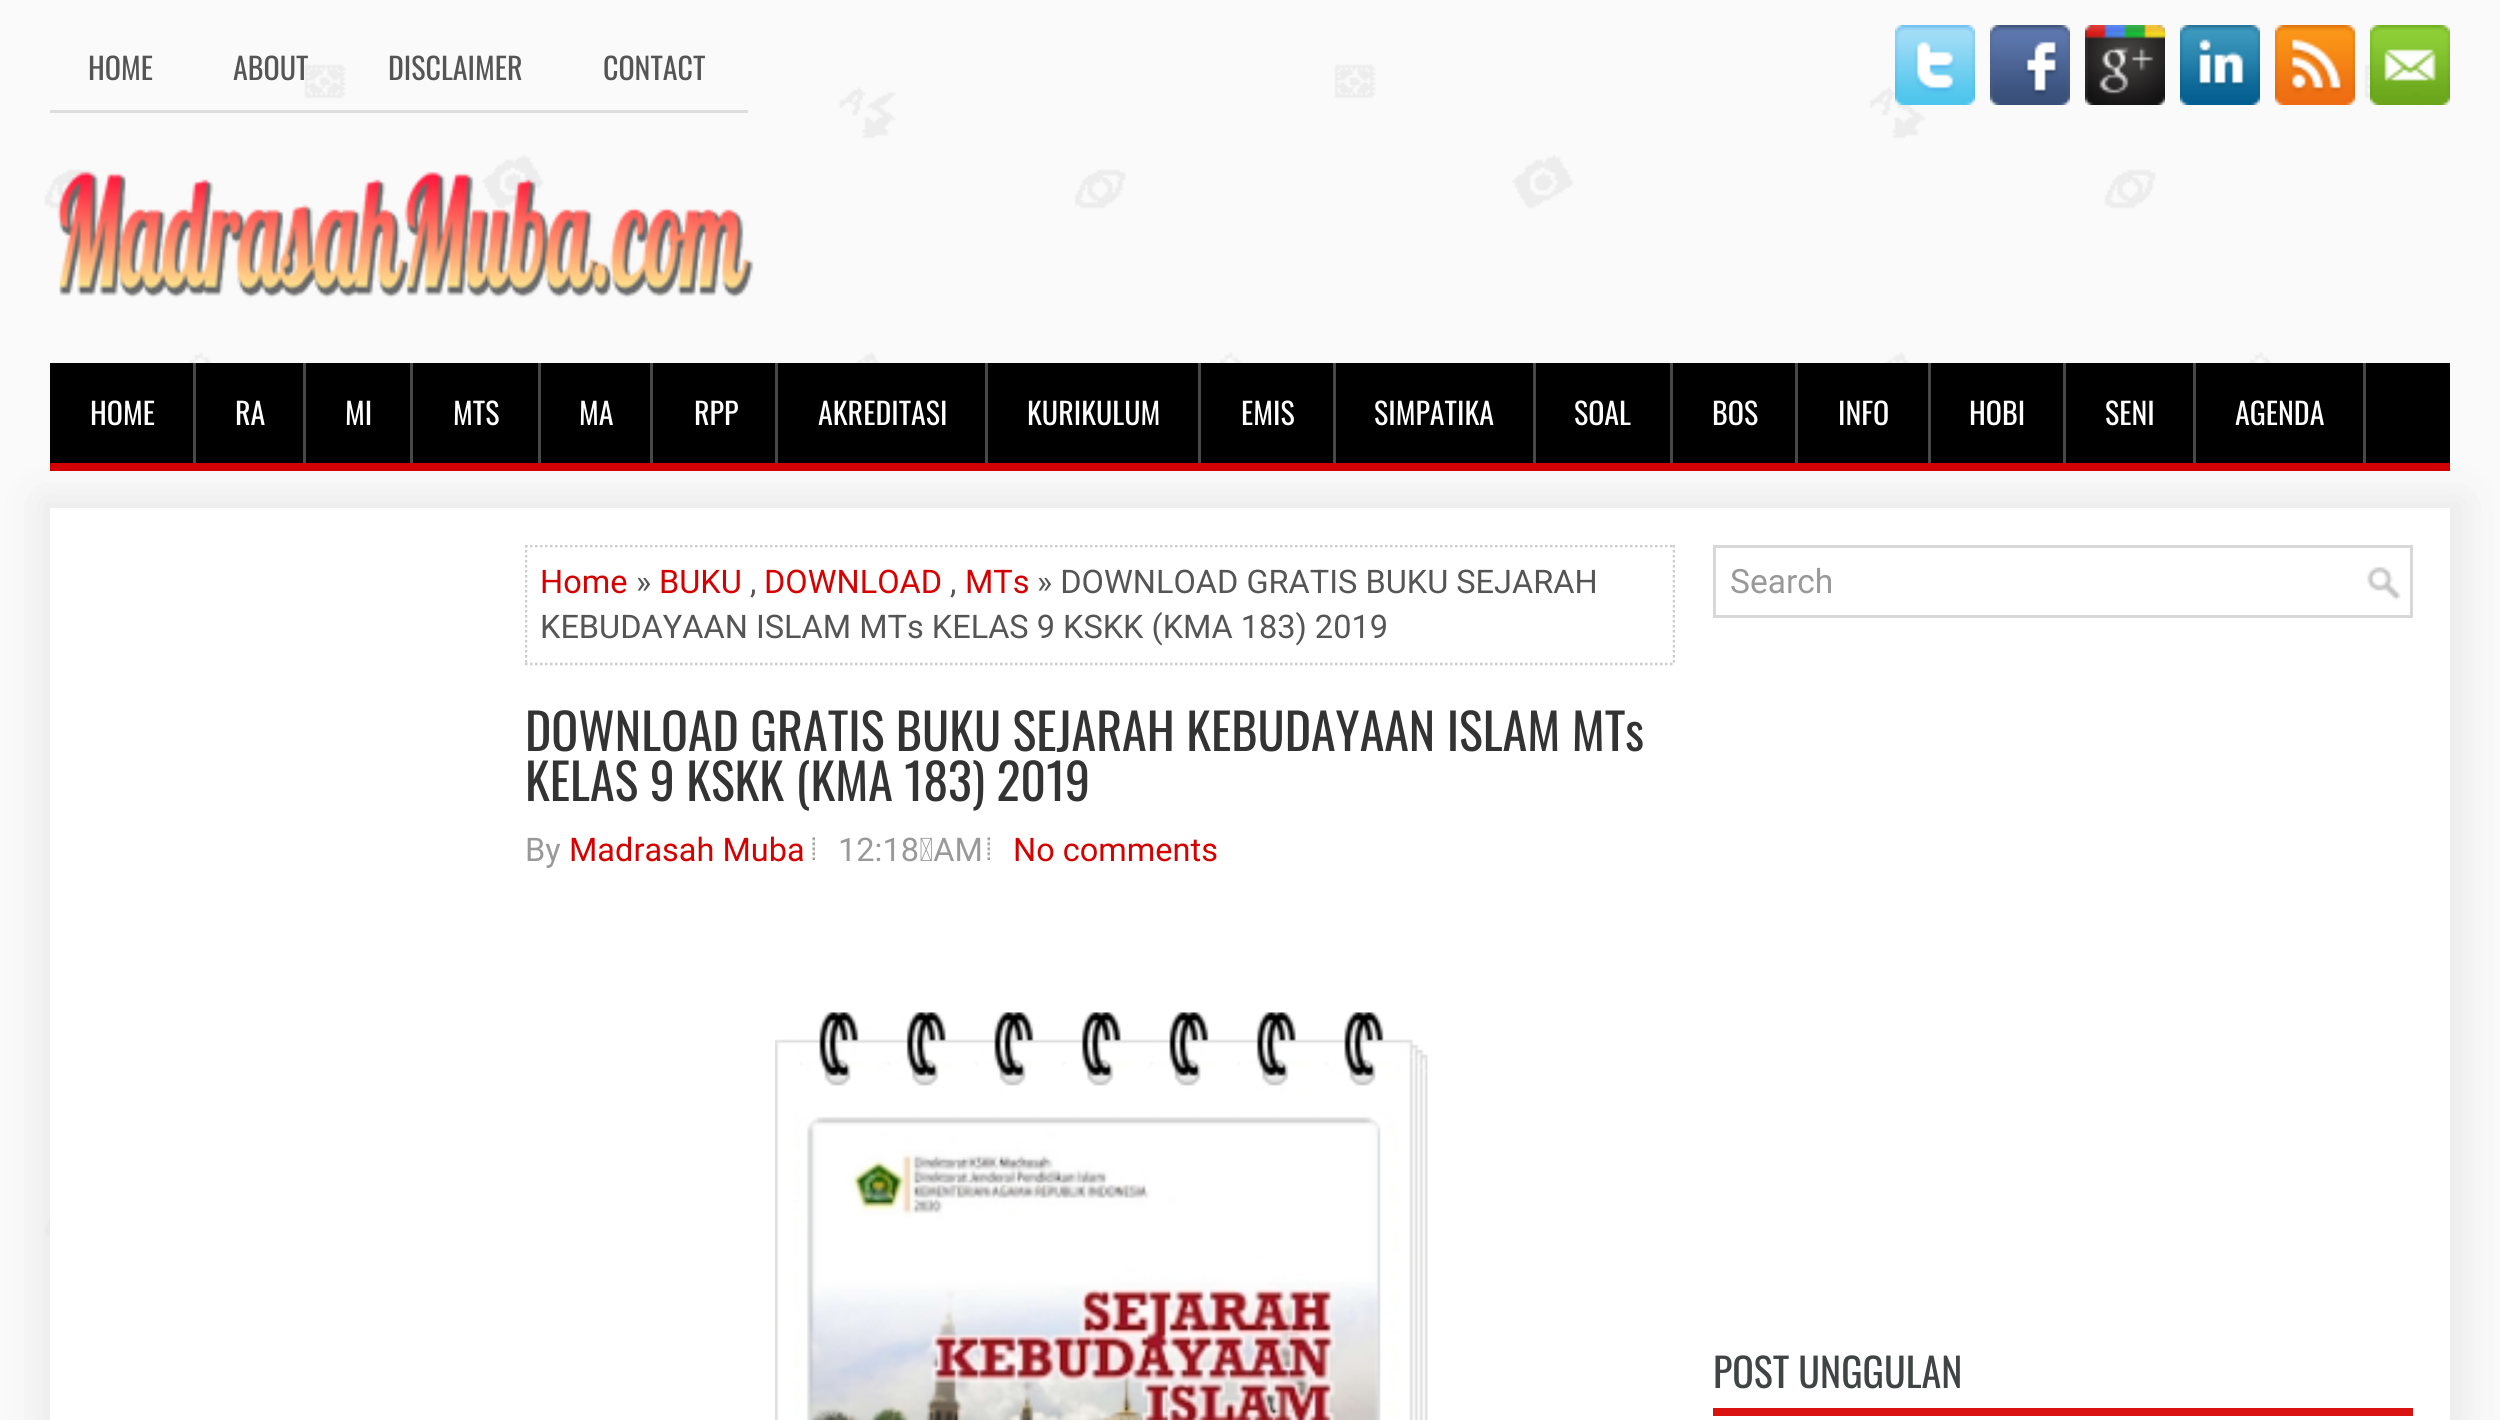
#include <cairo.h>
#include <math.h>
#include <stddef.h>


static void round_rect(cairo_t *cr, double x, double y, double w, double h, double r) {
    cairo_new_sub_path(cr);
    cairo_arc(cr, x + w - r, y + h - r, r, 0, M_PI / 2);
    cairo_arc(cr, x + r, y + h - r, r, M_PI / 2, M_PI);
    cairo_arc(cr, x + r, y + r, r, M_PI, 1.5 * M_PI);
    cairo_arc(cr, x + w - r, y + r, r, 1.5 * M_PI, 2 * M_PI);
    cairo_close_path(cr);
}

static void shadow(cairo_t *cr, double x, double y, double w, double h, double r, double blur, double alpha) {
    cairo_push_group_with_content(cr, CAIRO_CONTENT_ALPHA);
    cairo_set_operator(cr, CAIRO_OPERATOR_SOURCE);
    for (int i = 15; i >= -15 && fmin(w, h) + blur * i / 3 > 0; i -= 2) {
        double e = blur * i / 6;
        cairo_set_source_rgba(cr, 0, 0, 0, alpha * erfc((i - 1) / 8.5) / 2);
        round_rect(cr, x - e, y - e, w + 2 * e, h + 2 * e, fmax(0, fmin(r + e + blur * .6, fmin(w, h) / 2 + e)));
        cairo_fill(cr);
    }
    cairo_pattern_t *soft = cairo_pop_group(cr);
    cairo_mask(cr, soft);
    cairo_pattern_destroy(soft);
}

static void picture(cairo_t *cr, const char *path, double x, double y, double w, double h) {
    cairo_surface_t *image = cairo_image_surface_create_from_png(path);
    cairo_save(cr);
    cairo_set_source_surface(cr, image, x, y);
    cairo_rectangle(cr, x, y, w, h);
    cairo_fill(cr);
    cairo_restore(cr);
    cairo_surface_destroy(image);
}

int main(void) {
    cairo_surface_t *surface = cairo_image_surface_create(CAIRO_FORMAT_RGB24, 2500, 1420);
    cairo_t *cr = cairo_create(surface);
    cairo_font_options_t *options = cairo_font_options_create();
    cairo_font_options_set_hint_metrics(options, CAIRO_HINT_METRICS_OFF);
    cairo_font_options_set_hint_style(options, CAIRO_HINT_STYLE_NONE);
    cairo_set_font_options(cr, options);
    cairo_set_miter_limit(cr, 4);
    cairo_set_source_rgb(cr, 1, 1, 1);
    cairo_paint(cr);
    picture(cr, "img1.png", 0, 0, 2500, 1420);
    cairo_set_source_rgb(cr, 0.867, 0.867, 0.867);
    cairo_rectangle(cr, 50, 110, 698, 3);
    cairo_fill(cr);
    cairo_select_font_face(cr, "Oswald", CAIRO_FONT_SLANT_NORMAL, CAIRO_FONT_WEIGHT_NORMAL);
    cairo_set_font_size(cr, 30);
    cairo_set_source_rgb(cr, 0.333, 0.333, 0.333);
    cairo_move_to(cr, 88, 80);
    cairo_show_text(cr, "HOME");
    cairo_move_to(cr, 233, 80);
    cairo_show_text(cr, "ABOUT");
    cairo_move_to(cr, 388, 80);
    cairo_show_text(cr, "DISCLAIMER");
    cairo_move_to(cr, 603, 80);
    cairo_show_text(cr, "CONTACT");
    picture(cr, "img2.png", 1895, 25, 80, 80);
    picture(cr, "img3.png", 1990, 25, 80, 80);
    picture(cr, "img4.png", 2085, 25, 80, 80);
    picture(cr, "img5.png", 2180, 25, 80, 80);
    picture(cr, "img6.png", 2275, 25, 80, 80);
    picture(cr, "img7.png", 2370, 25, 80, 80);
    picture(cr, "img8.png", 57, 171, 697, 127);
    cairo_set_source_rgb(cr, 0.914, 0.914, 0.914);
    shadow(cr, 40, 498, 2425, 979, 0, 19, 1);
    cairo_set_source_rgb(cr, 0, 0, 0);
    cairo_rectangle(cr, 50, 363, 2400, 100);
    cairo_fill(cr);
    cairo_set_source_rgb(cr, 0.824, 0, 0.004);
    cairo_rectangle(cr, 50, 463, 2400, 8);
    cairo_fill(cr);
    cairo_set_source_rgb(cr, 0.282, 0.282, 0.282);
    cairo_rectangle(cr, 193, 363, 3, 100);
    cairo_fill(cr);
    cairo_set_source_rgb(cr, 1, 1, 1);
    cairo_move_to(cr, 90, 425);
    cairo_show_text(cr, "HOME");
    cairo_set_source_rgb(cr, 0.282, 0.282, 0.282);
    cairo_rectangle(cr, 303, 363, 3, 100);
    cairo_fill(cr);
    cairo_set_source_rgb(cr, 1, 1, 1);
    cairo_move_to(cr, 235, 425);
    cairo_show_text(cr, "RA");
    cairo_set_source_rgb(cr, 0.282, 0.282, 0.282);
    cairo_rectangle(cr, 410, 363, 3, 100);
    cairo_fill(cr);
    cairo_set_source_rgb(cr, 1, 1, 1);
    cairo_move_to(cr, 345, 425);
    cairo_show_text(cr, "MI");
    cairo_set_source_rgb(cr, 0.282, 0.282, 0.282);
    cairo_rectangle(cr, 538, 363, 3, 100);
    cairo_fill(cr);
    cairo_set_source_rgb(cr, 1, 1, 1);
    cairo_move_to(cr, 453, 425);
    cairo_show_text(cr, "MTS");
    cairo_set_source_rgb(cr, 0.282, 0.282, 0.282);
    cairo_rectangle(cr, 650, 363, 3, 100);
    cairo_fill(cr);
    cairo_set_source_rgb(cr, 1, 1, 1);
    cairo_move_to(cr, 579, 425);
    cairo_show_text(cr, "MA");
    cairo_set_source_rgb(cr, 0.282, 0.282, 0.282);
    cairo_rectangle(cr, 775, 363, 3, 100);
    cairo_fill(cr);
    cairo_set_source_rgb(cr, 1, 1, 1);
    cairo_move_to(cr, 694, 425);
    cairo_show_text(cr, "RPP");
    cairo_set_source_rgb(cr, 0.282, 0.282, 0.282);
    cairo_rectangle(cr, 985, 363, 3, 100);
    cairo_fill(cr);
    cairo_set_source_rgb(cr, 1, 1, 1);
    cairo_move_to(cr, 818, 425);
    cairo_show_text(cr, "AKREDITASI");
    cairo_set_source_rgb(cr, 0.282, 0.282, 0.282);
    cairo_rectangle(cr, 1198, 363, 3, 100);
    cairo_fill(cr);
    cairo_set_source_rgb(cr, 1, 1, 1);
    cairo_move_to(cr, 1027, 425);
    cairo_show_text(cr, "KURIKULUM");
    cairo_set_source_rgb(cr, 0.282, 0.282, 0.282);
    cairo_rectangle(cr, 1333, 363, 3, 100);
    cairo_fill(cr);
    cairo_set_source_rgb(cr, 1, 1, 1);
    cairo_move_to(cr, 1241, 425);
    cairo_show_text(cr, "EMIS");
    cairo_set_source_rgb(cr, 0.282, 0.282, 0.282);
    cairo_rectangle(cr, 1533, 363, 3, 100);
    cairo_fill(cr);
    cairo_set_source_rgb(cr, 1, 1, 1);
    cairo_move_to(cr, 1374, 425);
    cairo_show_text(cr, "SIMPATIKA");
    cairo_set_source_rgb(cr, 0.282, 0.282, 0.282);
    cairo_rectangle(cr, 1670, 363, 3, 100);
    cairo_fill(cr);
    cairo_set_source_rgb(cr, 1, 1, 1);
    cairo_move_to(cr, 1574, 425);
    cairo_show_text(cr, "SOAL");
    cairo_set_source_rgb(cr, 0.282, 0.282, 0.282);
    cairo_rectangle(cr, 1795, 363, 3, 100);
    cairo_fill(cr);
    cairo_set_source_rgb(cr, 1, 1, 1);
    cairo_move_to(cr, 1712, 425);
    cairo_show_text(cr, "BOS");
    cairo_set_source_rgb(cr, 0.282, 0.282, 0.282);
    cairo_rectangle(cr, 1928, 363, 3, 100);
    cairo_fill(cr);
    cairo_set_source_rgb(cr, 1, 1, 1);
    cairo_move_to(cr, 1838, 425);
    cairo_show_text(cr, "INFO");
    cairo_set_source_rgb(cr, 0.282, 0.282, 0.282);
    cairo_rectangle(cr, 2063, 363, 3, 100);
    cairo_fill(cr);
    cairo_set_source_rgb(cr, 1, 1, 1);
    cairo_move_to(cr, 1969, 425);
    cairo_show_text(cr, "HOBI");
    cairo_set_source_rgb(cr, 0.282, 0.282, 0.282);
    cairo_rectangle(cr, 2193, 363, 3, 100);
    cairo_fill(cr);
    cairo_set_source_rgb(cr, 1, 1, 1);
    cairo_move_to(cr, 2105, 425);
    cairo_show_text(cr, "SENI");
    cairo_set_source_rgb(cr, 0.282, 0.282, 0.282);
    cairo_rectangle(cr, 2363, 363, 3, 100);
    cairo_fill(cr);
    cairo_set_source_rgb(cr, 1, 1, 1);
    cairo_move_to(cr, 2235, 425);
    cairo_show_text(cr, "AGENDA");
    cairo_rectangle(cr, 50, 508, 2400, 912);
    cairo_fill(cr);
    cairo_save(cr);
    cairo_rectangle(cr, 525, 545, 1150, 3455);
    cairo_clip(cr);
    cairo_new_path(cr);
    cairo_move_to(cr, 525, 546);
    cairo_line_to(cr, 1675, 546);
    cairo_set_source_rgb(cr, 0.8, 0.8, 0.8);
    cairo_set_line_width(cr, 2.5);
    cairo_set_dash(cr, (double[]){2.5, 2.5}, 2, 0);
    cairo_stroke(cr);
    cairo_new_path(cr);
    cairo_move_to(cr, 1674, 545);
    cairo_line_to(cr, 1674, 665);
    cairo_stroke(cr);
    cairo_restore(cr);
    cairo_new_path(cr);
    cairo_move_to(cr, 525, 664);
    cairo_line_to(cr, 1675, 664);
    cairo_set_source_rgb(cr, 0.8, 0.8, 0.8);
    cairo_set_line_width(cr, 2.5);
    cairo_set_dash(cr, (double[]){2.5, 2.5}, 2, 0);
    cairo_stroke(cr);
    cairo_save(cr);
    cairo_rectangle(cr, 525, 545, 1150, 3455);
    cairo_clip(cr);
    cairo_new_path(cr);
    cairo_move_to(cr, 526, 545);
    cairo_line_to(cr, 526, 665);
    cairo_stroke(cr);
    cairo_restore(cr);
    cairo_select_font_face(cr, "Roboto", CAIRO_FONT_SLANT_NORMAL, CAIRO_FONT_WEIGHT_NORMAL);
    cairo_set_font_size(cr, 32.5);
    cairo_set_source_rgb(cr, 0.843, 0, 0);
    cairo_move_to(cr, 540, 593);
    cairo_show_text(cr, "Home");
    cairo_set_source_rgb(cr, 0.333, 0.333, 0.333);
    cairo_move_to(cr, 636, 593);
    cairo_show_text(cr, "»");
    cairo_set_source_rgb(cr, 0.843, 0, 0);
    cairo_move_to(cr, 659, 593);
    cairo_show_text(cr, "BUKU");
    cairo_move_to(cr, 764, 593);
    cairo_show_text(cr, "DOWNLOAD");
    cairo_move_to(cr, 965, 593);
    cairo_show_text(cr, "MTs");
    cairo_set_source_rgb(cr, 0.333, 0.333, 0.333);
    cairo_move_to(cr, 1037, 593);
    cairo_show_text(cr, "» DOWNLOAD GRATIS BUKU SEJARAH");
    cairo_move_to(cr, 750, 593);
    cairo_show_text(cr, ",");
    cairo_move_to(cr, 950, 593);
    cairo_show_text(cr, ",");
    cairo_move_to(cr, 540, 638);
    cairo_show_text(cr, "KEBUDAYAAN ISLAM MTs KELAS 9 KSKK (KMA 183) 2019");
    cairo_select_font_face(cr, "Oswald", CAIRO_FONT_SLANT_NORMAL, CAIRO_FONT_WEIGHT_NORMAL);
    cairo_set_font_size(cr, 50);
    cairo_set_source_rgb(cr, 0.2, 0.2, 0.2);
    cairo_move_to(cr, 525, 751);
    cairo_show_text(cr, "DOWNLOAD GRATIS BUKU SEJARAH KEBUDAYAAN ISLAM MTs");
    cairo_move_to(cr, 525, 801);
    cairo_show_text(cr, "KELAS 9 KSKK (KMA 183) 2019");
    cairo_select_font_face(cr, "Roboto", CAIRO_FONT_SLANT_NORMAL, CAIRO_FONT_WEIGHT_NORMAL);
    cairo_set_font_size(cr, 32.5);
    cairo_set_source_rgb(cr, 0.6, 0.6, 0.6);
    cairo_move_to(cr, 525, 861);
    cairo_show_text(cr, "By");
    cairo_set_source_rgb(cr, 0.843, 0, 0);
    cairo_move_to(cr, 569, 861);
    cairo_show_text(cr, "Madrasah Muba");
    picture(cr, "img9.png", 812, 837, 3, 23);
    cairo_set_source_rgb(cr, 0.6, 0.6, 0.6);
    cairo_move_to(cr, 838, 861);
    cairo_show_text(cr, "12:18 AM");
    picture(cr, "img9.png", 987, 837, 3, 23);
    cairo_set_source_rgb(cr, 0.843, 0, 0);
    cairo_move_to(cr, 1013, 861);
    cairo_show_text(cr, "No comments");
    picture(cr, "img10.png", 775, 1012, 653, 408);
    picture(cr, "img11.png", 2367, 566, 34, 35);
    cairo_rectangle(cr, 1714.5, 546.5, 697, 70);
    cairo_set_source_rgb(cr, 0.847, 0.847, 0.847);
    cairo_set_line_width(cr, 3);
    cairo_set_dash(cr, NULL, 0, 0);
    cairo_stroke(cr);
    cairo_set_font_size(cr, 33.5);
    cairo_set_source_rgb(cr, 0.6, 0.6, 0.6);
    cairo_move_to(cr, 1730, 593);
    cairo_show_text(cr, "Search");
    cairo_set_source_rgb(cr, 0.855, 0.071, 0.071);
    cairo_rectangle(cr, 1713, 1408, 700, 8);
    cairo_fill(cr);
    cairo_select_font_face(cr, "Oswald", CAIRO_FONT_SLANT_NORMAL, CAIRO_FONT_WEIGHT_NORMAL);
    cairo_set_font_size(cr, 40);
    cairo_set_source_rgb(cr, 0.255, 0.267, 0.271);
    cairo_move_to(cr, 1713, 1388);
    cairo_show_text(cr, "POST UNGGULAN");
    cairo_surface_write_to_png(surface, "page.png");
    cairo_font_options_destroy(options);
    cairo_destroy(cr);
    cairo_surface_destroy(surface);
    return 0;
}
